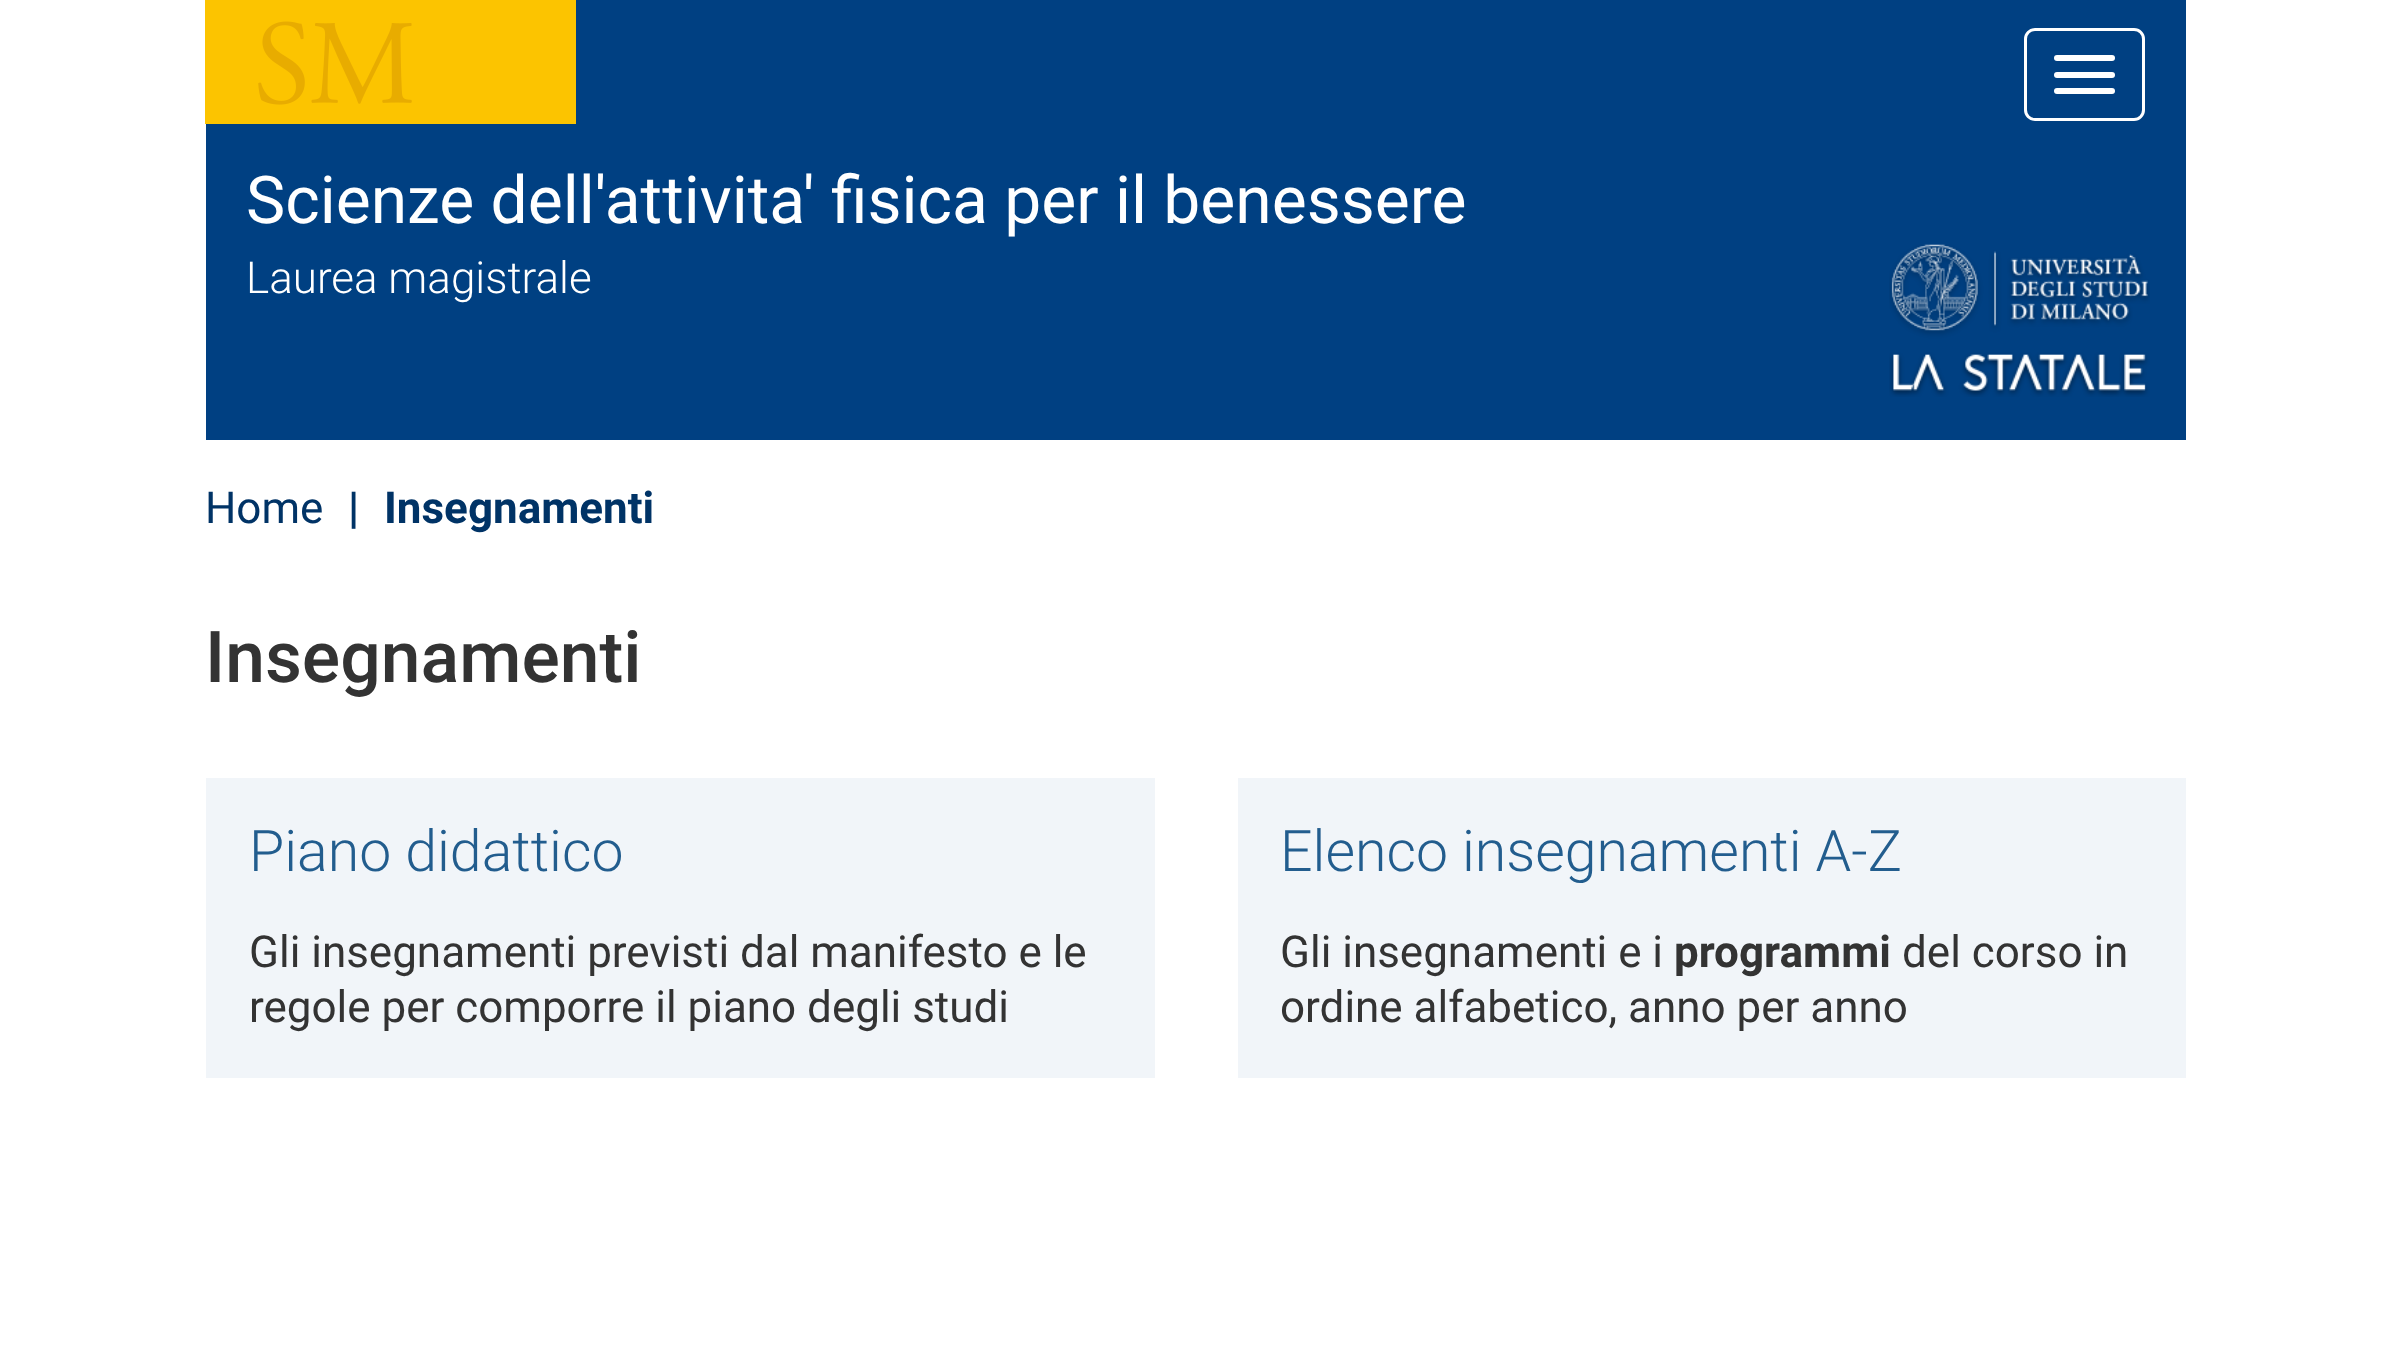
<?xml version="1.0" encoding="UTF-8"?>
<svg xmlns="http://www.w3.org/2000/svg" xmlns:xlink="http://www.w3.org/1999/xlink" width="2389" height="1352">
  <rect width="100%" height="100%" fill="#ffffff" />
  <rect x="206" width="1980" height="440" fill="#004082" />
  <rect x="2025.5" y="29.5" width="118" height="90" rx="9.5" fill="none" stroke="#ffffff" stroke-width="3" />
  <rect x="2054" y="55" width="61" height="6" rx="3" fill="#ffffff" />
  <rect x="2054" y="72" width="61" height="6" rx="3" fill="#ffffff" />
  <rect x="2054" y="88" width="61" height="6" rx="3" fill="#ffffff" />
  <rect x="205" width="371" height="124" fill="#fcc400" />
  <image x="258" y="21" width="154" height="84" xlink:href="image1.png" />
  <image x="1889" y="244" width="261" height="153" xlink:href="image2.png" />
  <rect x="206" y="778" width="949" height="300" fill="#f1f5f9" />
  <rect x="1238" y="778" width="948" height="300" fill="#f1f5f9" />
  <text x="246" y="223" style="font-family: Roboto; font-size: 66px; fill: #ffffff">Scienze dell'attivita' fisica per il benessere</text>
  <text x="246" y="293" style="font-family: Roboto; font-size: 44px; font-weight: 300; fill: #ffffff">Laurea magistrale</text>
  <text x="205" y="523" style="font-family: Roboto; font-size: 44px; fill: #003366">Home</text>
  <text x="348" y="523" style="font-family: Roboto; font-size: 44px; font-weight: bold; fill: #003366">|</text>
  <text x="384" y="523" style="font-family: Roboto; font-size: 44px; font-weight: bold; fill: #003366">Insegnamenti</text>
  <text x="205" y="682" style="font-family: Roboto; font-size: 71.5px; font-weight: 500; fill: #333333">Insegnamenti</text>
  <text x="249" y="871" style="font-family: Roboto; font-size: 57.25px; font-weight: 300; fill: #225d8e">Piano didattico</text>
  <text x="249" y="967" style="font-family: Roboto; font-size: 44px; fill: #333333">Gli insegnamenti previsti dal manifesto e le</text>
  <text x="249" y="1022" style="font-family: Roboto; font-size: 44px; fill: #333333">regole per comporre il piano degli studi</text>
  <text x="1280" y="871" style="font-family: Roboto; font-size: 57.25px; font-weight: 300; fill: #225d8e">Elenco insegnamenti A-Z</text>
  <text x="1280" y="967" style="font-family: Roboto; font-size: 44px; fill: #333333">Gli insegnamenti e i</text>
  <text x="1674" y="967" style="font-family: Roboto; font-size: 44px; font-weight: bold; fill: #333333">programmi</text>
  <text x="1902" y="967" style="font-family: Roboto; font-size: 44px; fill: #333333">del corso in</text>
  <text x="1280" y="1022" style="font-family: Roboto; font-size: 44px; fill: #333333">ordine alfabetico, anno per anno</text>
</svg>
